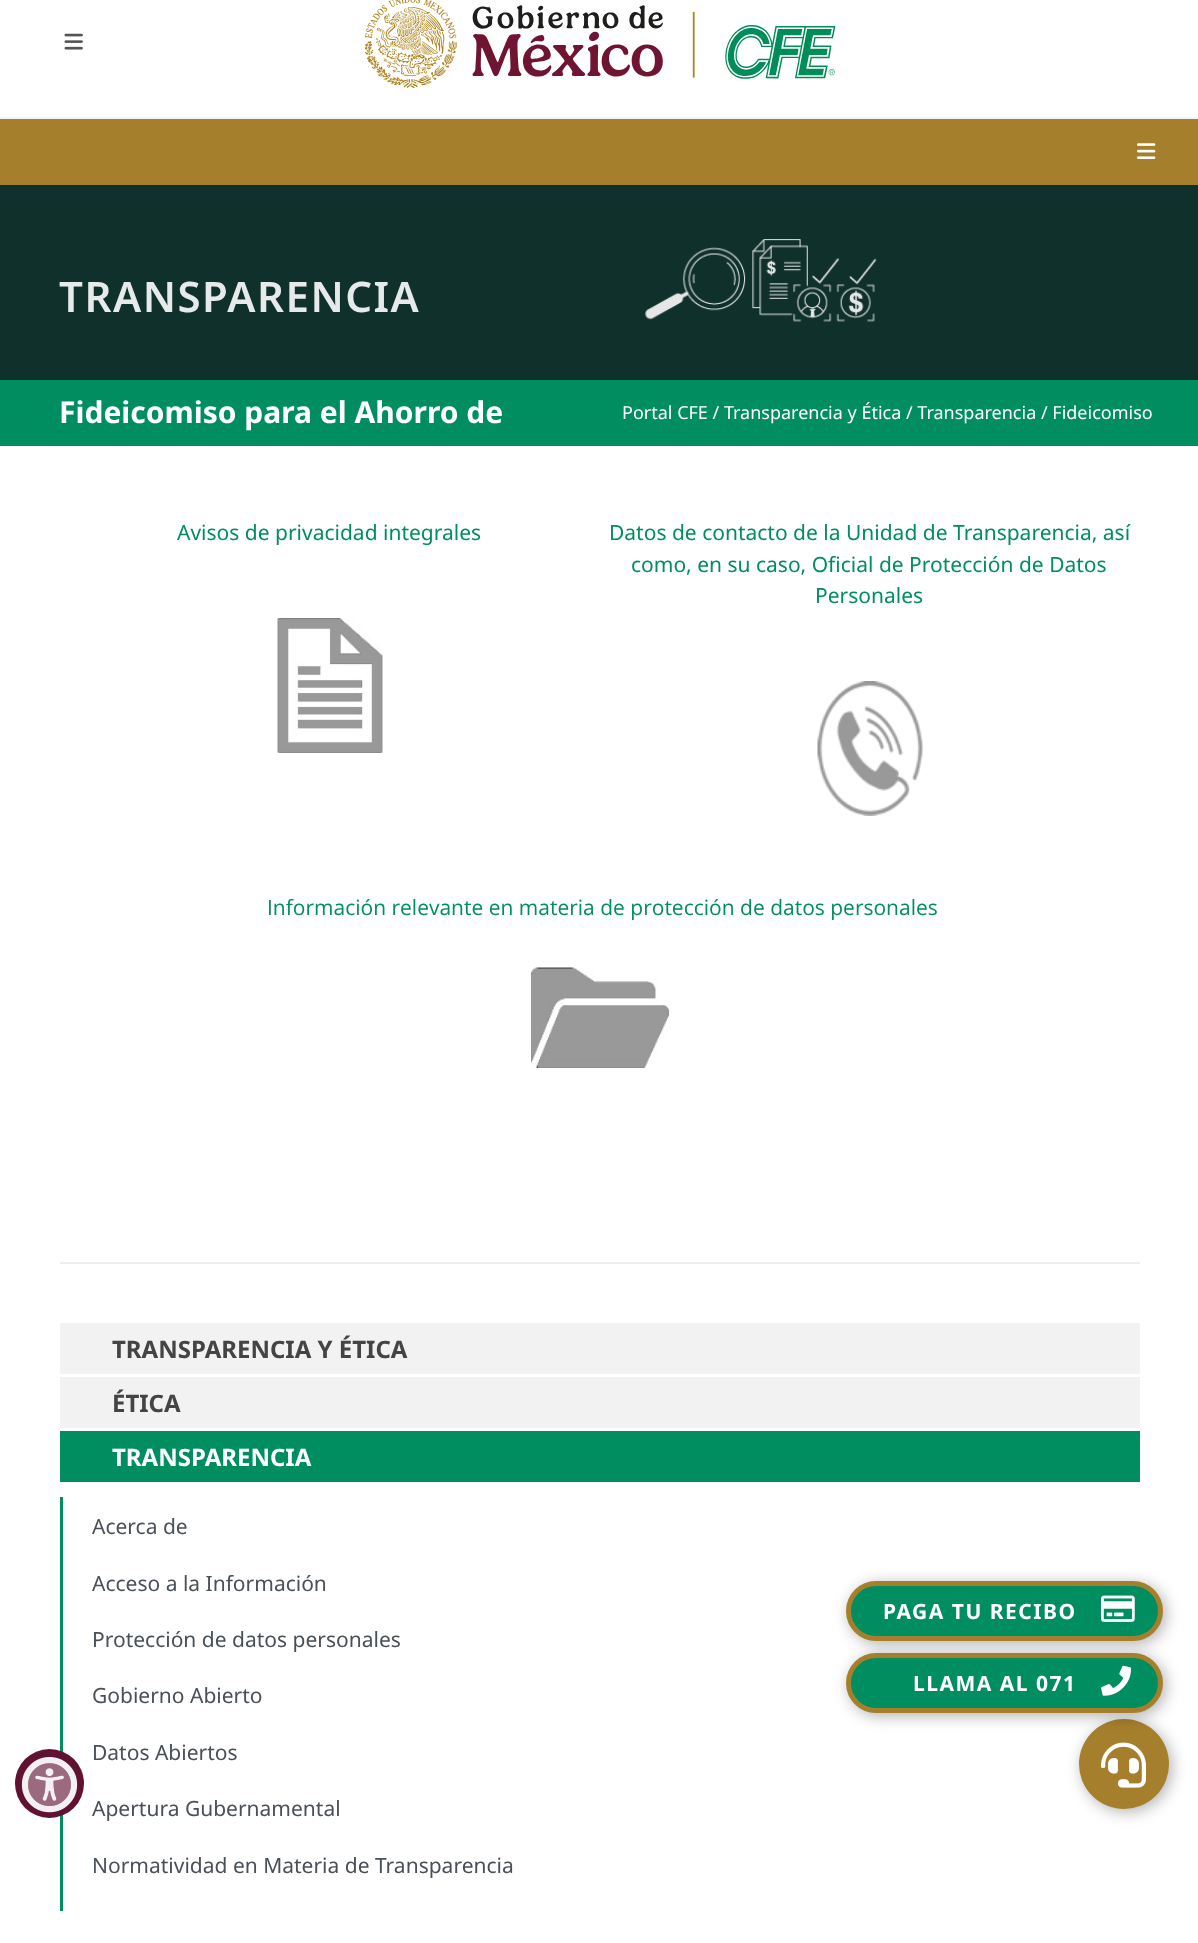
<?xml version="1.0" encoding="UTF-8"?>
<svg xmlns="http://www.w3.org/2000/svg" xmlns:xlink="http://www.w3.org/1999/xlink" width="1198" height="1943">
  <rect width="100%" height="100%" fill="#ffffff" />
  <rect x="60" y="1497" width="3" height="255" fill="#008e60" />
  <rect x="60" y="1815" width="3" height="96" fill="#008e60" />
  <circle cx="49.5" cy="1783.5" r="34.5" fill="#611232" />
  <image x="21" y="1757" width="57" height="56" xlink:href="image1.png" />
  <image x="28" y="1763" width="43" height="43" xlink:href="image2.png" />
  <rect y="119" width="1198" height="66" fill="#a57f2c" />
  <image x="1137" y="143" width="19" height="16" xlink:href="image3.png" />
  <rect y="185" width="1198" height="195" fill="#10312b" />
  <image x="645" y="239" width="232" height="83" xlink:href="image4.png" />
  <rect y="380" width="1198" height="66" fill="#008e60" />
  <rect x="60" y="1262" width="1080" height="2" fill="#eeeeee" />
  <image x="277" y="618" width="106" height="135" xlink:href="image5.png" />
  <image x="817" y="681" width="106" height="135" xlink:href="image6.png" />
  <image x="531" y="967" width="138" height="101" xlink:href="image7.png" />
  <rect x="60" y="1323" width="1080" height="51" fill="#f3f2f2" />
  <rect x="60" y="1377" width="1080" height="51" fill="#f3f2f2" />
  <rect x="60" y="1431" width="1080" height="51" fill="#008e60" />
  <rect y="117" width="1198" height="2" fill="#f5f5f5" />
  <image x="64" y="33" width="19" height="17" xlink:href="image8.png" />
  <image x="365" y="0" width="471" height="89" xlink:href="image9.png" />
  <rect x="849" y="1584" width="317" height="60" rx="30" fill="#000000" fill-opacity="0.3" filter="blur(7.5px)" />
  <rect x="848.5" y="1583.5" width="312" height="55" rx="27.5" fill="#008e60" stroke="#a57f2c" stroke-width="5" />
  <image x="1101" y="1595" width="34" height="27" xlink:href="image10.png" />
  <rect x="1082" y="1722" width="90" height="90" rx="45" fill="#000000" fill-opacity="0.3" filter="blur(7.5px)" />
  <circle cx="1124" cy="1764" r="45" fill="#a57f2c" />
  <rect x="849" y="1656" width="317" height="60" rx="30" fill="#000000" fill-opacity="0.3" filter="blur(7.5px)" />
  <rect x="848.5" y="1655.5" width="312" height="55" rx="27.5" fill="#008e60" stroke="#a57f2c" stroke-width="5" />
  <image x="1101" y="1665" width="31" height="31" xlink:href="image11.png" />
  <image x="1101" y="1742" width="45" height="46" xlink:href="image12.png" />
  <text x="59" y="312" style="font-family: Noto Sans; font-size: 42px; font-weight: 600; letter-spacing: 1.5px; fill: #e7eaea">TRANSPARENCIA</text>
  <text x="59" y="423" style="font-family: Noto Sans; font-size: 30px; font-weight: bold; fill: #ffffff">Fideicomiso para el Ahorro de</text>
  <text x="622" y="419" style="font-family: Noto Sans; font-size: 18px; fill: #ffffff">Portal CFE / Transparencia y Ética / Transparencia / Fideicomiso</text>
  <text x="177" y="540" style="font-family: Noto Sans; font-size: 21px; fill: #008e60">Avisos de privacidad integrales</text>
  <text x="609" y="540" style="font-family: Noto Sans; font-size: 21px; fill: #008e60">Datos de contacto de la Unidad de Transparencia, así</text>
  <text x="631" y="572" style="font-family: Noto Sans; font-size: 21px; fill: #008e60">como, en su caso, Oficial de Protección de Datos</text>
  <text x="815" y="603" style="font-family: Noto Sans; font-size: 21px; fill: #008e60">Personales</text>
  <text x="267" y="915" style="font-family: Open Sans; font-size: 21px; fill: #008e60">Información relevante en materia de protección de datos personales</text>
  <text x="112" y="1358" style="font-family: Noto Sans; font-size: 24px; font-weight: bold; fill: #444444">TRANSPARENCIA Y ÉTICA</text>
  <text x="112" y="1412" style="font-family: Noto Sans; font-size: 24px; font-weight: bold; fill: #444444">ÉTICA</text>
  <text x="112" y="1466" style="font-family: Noto Sans; font-size: 24px; font-weight: bold; fill: #ffffff">TRANSPARENCIA</text>
  <text x="92" y="1534" style="font-family: Noto Sans; font-size: 21px; fill: #495057">Acerca de</text>
  <text x="92" y="1591" style="font-family: Noto Sans; font-size: 21px; fill: #495057">Acceso a la Información</text>
  <text x="92" y="1647" style="font-family: Noto Sans; font-size: 21px; fill: #495057">Protección de datos personales</text>
  <text x="92" y="1703" style="font-family: Noto Sans; font-size: 21px; fill: #495057">Gobierno Abierto</text>
  <text x="92" y="1760" style="font-family: Noto Sans; font-size: 21px; fill: #495057">Datos Abiertos</text>
  <text x="92" y="1816" style="font-family: Noto Sans; font-size: 21px; fill: #495057">Apertura Gubernamental</text>
  <text x="92" y="1873" style="font-family: Noto Sans; font-size: 21px; fill: #495057">Normatividad en Materia de Transparencia</text>
  <text x="883" y="1619" style="font-family: Noto Sans; font-size: 21px; font-weight: bold; letter-spacing: 1.5px; fill: #ffffff">PAGA TU RECIBO</text>
  <text x="913" y="1691" style="font-family: Noto Sans; font-size: 21px; font-weight: bold; letter-spacing: 1.5px; fill: #ffffff">LLAMA AL 071</text>
</svg>
